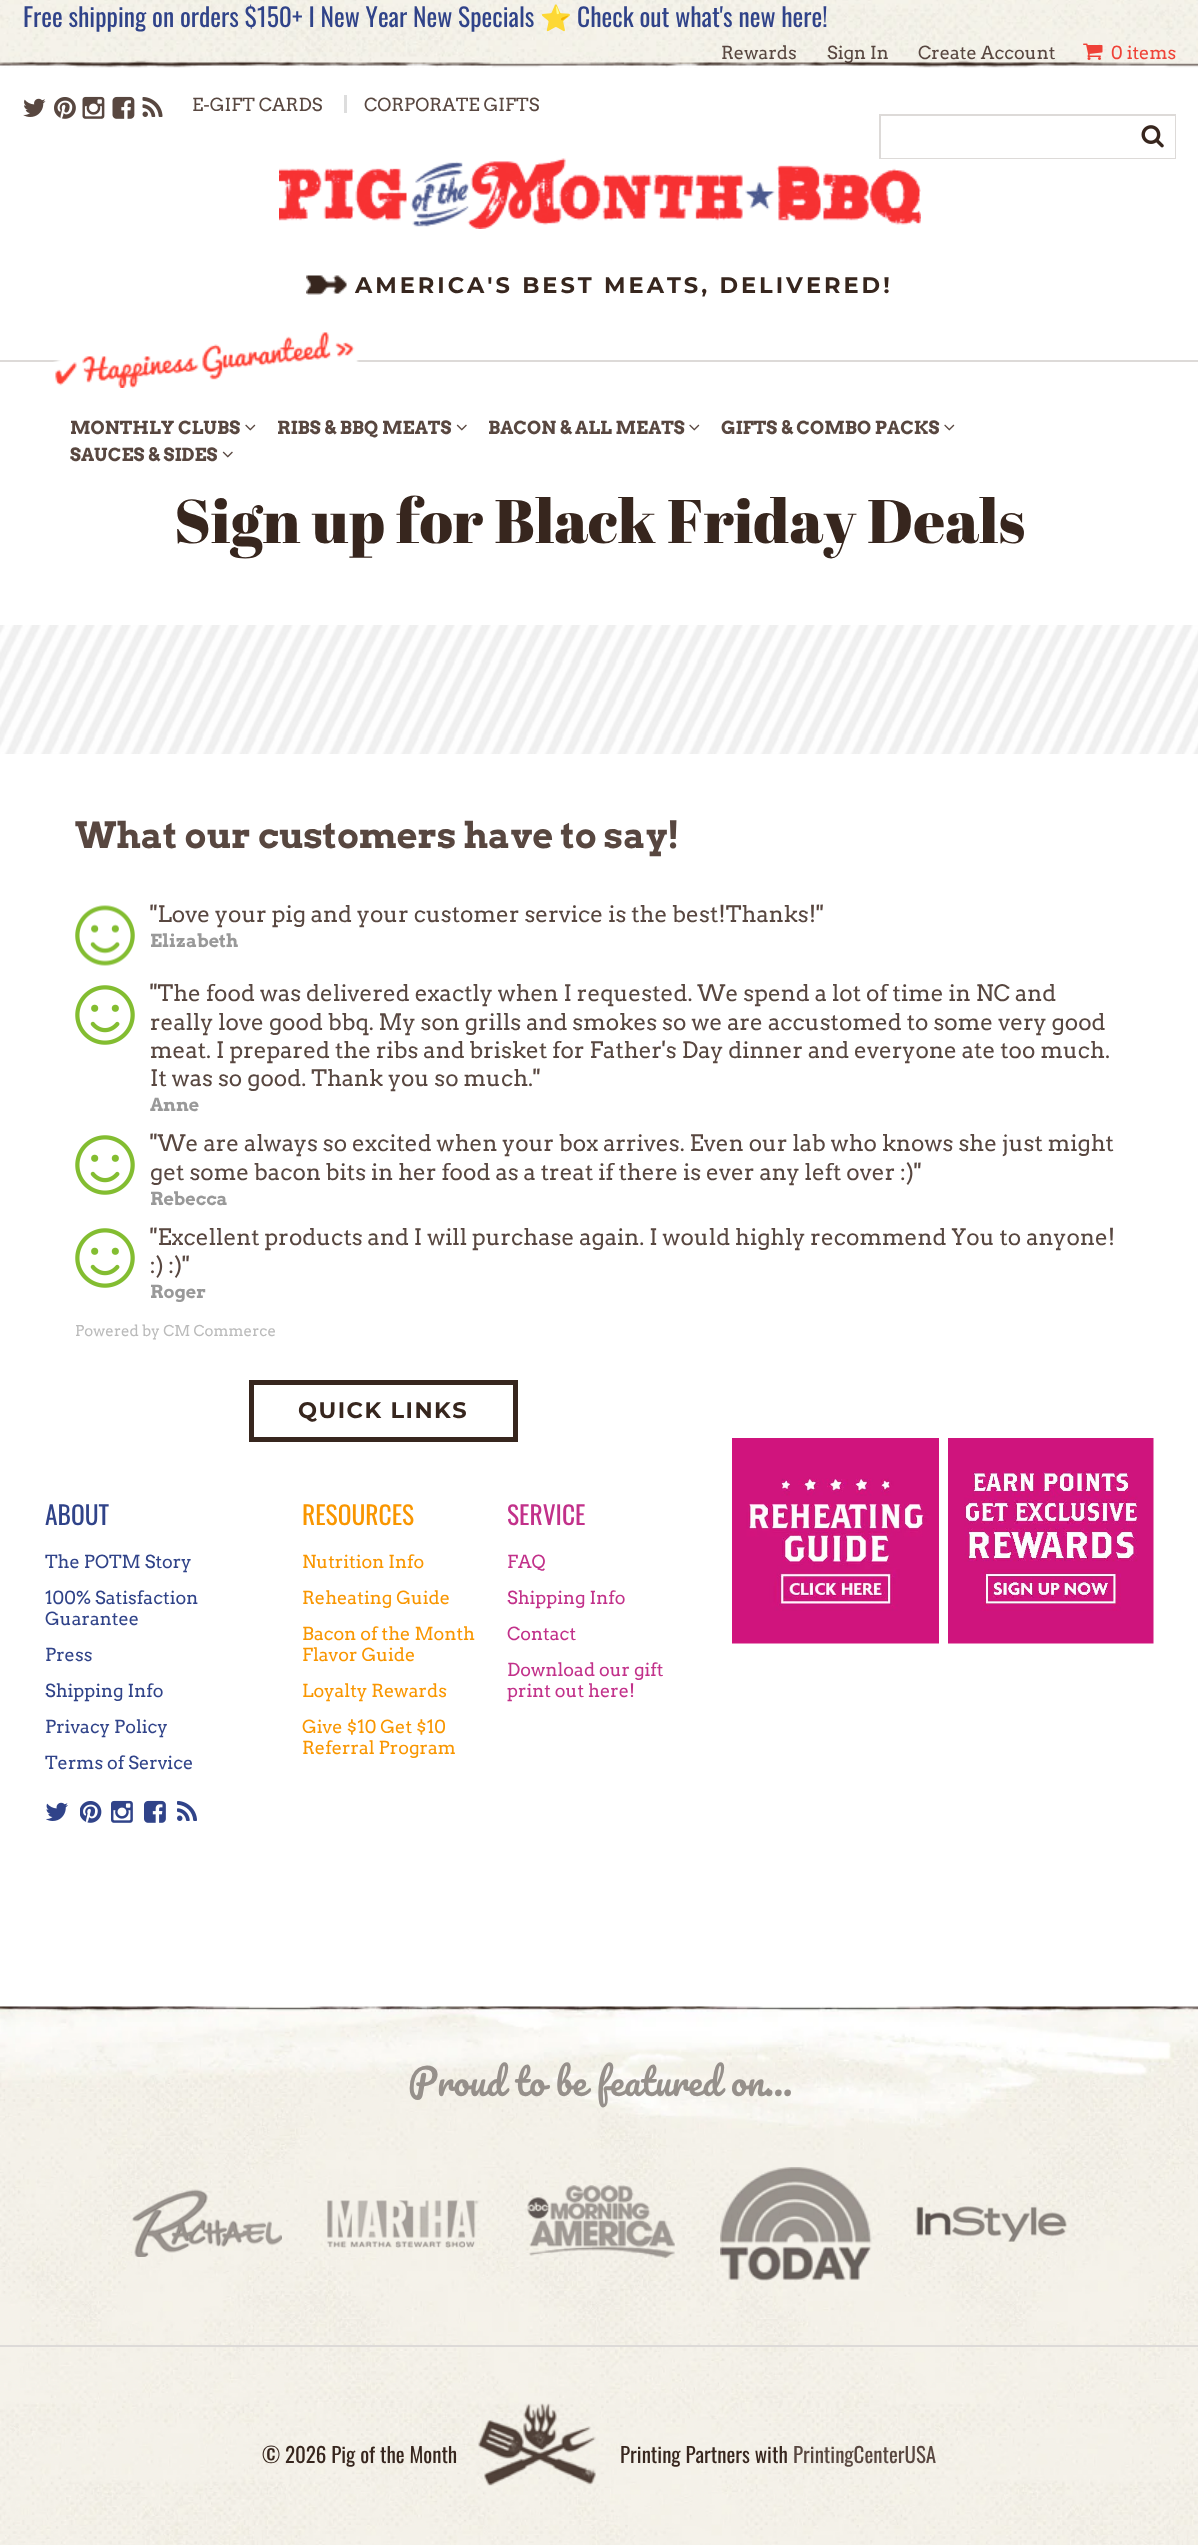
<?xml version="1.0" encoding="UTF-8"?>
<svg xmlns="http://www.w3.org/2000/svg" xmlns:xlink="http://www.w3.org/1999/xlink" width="1198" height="2545">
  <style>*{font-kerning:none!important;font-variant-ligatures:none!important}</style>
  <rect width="100%" height="100%" fill="#ffffff" />
  <image x="0" y="0" width="1198" height="64" xlink:href="image1.png" />
  <rect x="344" y="95" width="3" height="18" fill="#dddddd" />
  <image x="1083" y="43" width="20" height="17" xlink:href="image2.png" />
  <image x="279" y="158" width="642" height="71" xlink:href="image10.png" />
  <rect x="880" y="115" width="295" height="43" fill="none" stroke="#dddad8" stroke-width="2" />
  <rect x="881" y="157" width="255" height="1" fill="#ffffff" />
  <rect x="1136" y="116" width="39" height="42" fill="#ffffff" />
  <image x="1141" y="125" width="23" height="23" xlink:href="image3.png" />
  <image x="23" y="98" width="23" height="19" xlink:href="image5.png" />
  <image x="54" y="97" width="22" height="22" xlink:href="image6.png" />
  <image x="82" y="96" width="23" height="23" xlink:href="image7.png" />
  <image x="112" y="96" width="23" height="23" xlink:href="image8.png" />
  <image x="142" y="97" width="21" height="20" xlink:href="image9.png" />
  <image x="306" y="275" width="41" height="20" xlink:href="image11.png" />
  <rect y="360" width="1198" height="2" fill="#dddad8" />
  <image x="53" y="332" width="306" height="56" xlink:href="image12.png" />
  <image x="245" y="424" width="11" height="7" xlink:href="image13.png" />
  <image x="456" y="424" width="11" height="7" xlink:href="image14.png" />
  <image x="689" y="424" width="11" height="7" xlink:href="image13.png" />
  <image x="944" y="424" width="11" height="7" xlink:href="image13.png" />
  <image x="222" y="451" width="11" height="7" xlink:href="image14.png" />
  <image x="0" y="625" width="1198" height="129" xlink:href="image15.png" />
  <image x="75" y="905" width="60" height="61" xlink:href="image16.png" />
  <image x="75" y="985" width="60" height="60" xlink:href="image17.png" />
  <image x="75" y="1135" width="60" height="60" xlink:href="image17.png" />
  <image x="75" y="1228" width="60" height="60" xlink:href="image17.png" />
  <rect x="251.5" y="1382.5" width="264" height="57" fill="none" stroke="#37261e" stroke-width="5" />
  <image x="46" y="1802" width="22" height="19" xlink:href="image18.png" />
  <image x="80" y="1801" width="22" height="22" xlink:href="image19.png" />
  <image x="111" y="1800" width="22" height="23" xlink:href="image20.png" />
  <image x="144" y="1800" width="22" height="23" xlink:href="image21.png" />
  <image x="177" y="1801" width="20" height="20" xlink:href="image22.png" />
  <image x="732" y="1438" width="207" height="206" xlink:href="image23.png" />
  <image x="948" y="1438" width="206" height="206" xlink:href="image24.png" />
  <image x="0" y="2006" width="1198" height="539" xlink:href="image25.png" />
  <image x="132" y="2189" width="150" height="68" xlink:href="image26.png" />
  <image x="327" y="2200" width="152" height="48" xlink:href="image27.png" />
  <image x="527" y="2185" width="148" height="73" xlink:href="image28.png" />
  <image x="720" y="2167" width="152" height="114" xlink:href="image29.png" />
  <image x="916" y="2203" width="151" height="39" xlink:href="image30.png" />
  <rect y="2345" width="1198" height="2" fill="#dddad8" />
  <image x="478" y="2403" width="118" height="83" xlink:href="image31.png" />
  <text x="23" y="27" style="font-family: Oswald; font-size: 25.5px; fill: #304389">Free shipping on orders $150+ I New Year New Specials</text>
  <text x="540" y="27" style="font-family: Noto Color Emoji; font-size: 25.5px; fill: #304389">⭐</text>
  <text x="577" y="27" style="font-family: Oswald; font-size: 25.5px; fill: #304389">Check out what's new here!</text>
  <text x="721" y="59" style="font-family: Arvo; font-size: 18px; fill: #584740">Rewards</text>
  <text x="827" y="59" style="font-family: Arvo; font-size: 18px; fill: #584740">Sign In</text>
  <text x="918" y="59" style="font-family: Arvo; font-size: 18px; fill: #584740">Create Account</text>
  <text x="192" y="111" style="font-family: Arvo; font-size: 18px; fill: #584740">E-GIFT CARDS</text>
  <text x="364" y="111" style="font-family: Arvo; font-size: 18px; fill: #584740">CORPORATE GIFTS</text>
  <text x="1111" y="59" style="font-family: Arvo; font-size: 18px; fill: #ef4237">0 items</text>
  <image x="0" y="60" width="1198" height="8" xlink:href="image4.png" />
  <text x="355" y="293" style="font-family: Montserrat; font-size: 22.5px; font-weight: bold; letter-spacing: 3px; fill: #37261e">AMERICA'S BEST MEATS, DELIVERED!</text>
  <text x="70" y="434" style="font-family: Arvo; font-size: 18px; font-weight: bold; fill: #584740">MONTHLY CLUBS</text>
  <text x="277" y="434" style="font-family: Arvo; font-size: 18px; font-weight: bold; fill: #584740">RIBS &amp; BBQ MEATS</text>
  <text x="488" y="434" style="font-family: Arvo; font-size: 18px; font-weight: bold; fill: #584740">BACON &amp; ALL MEATS</text>
  <text x="721" y="434" style="font-family: Arvo; font-size: 18px; font-weight: bold; fill: #584740">GIFTS &amp; COMBO PACKS</text>
  <text x="70" y="461" style="font-family: Arvo; font-size: 18px; font-weight: bold; fill: #584740">SAUCES &amp; SIDES</text>
  <text x="174" y="543" style="font-family: Abril Fatface; font-size: 61.5px; fill: #37261e">Sign up for Black Friday Deals</text>
  <text x="75" y="848" style="font-family: Arvo; font-size: 36px; font-weight: bold; fill: #584740">What our customers have to say!</text>
  <text x="150" y="922" style="font-family: Arvo; font-size: 22.5px; fill: #584740">''Love your pig and your customer service is the best!Thanks!''</text>
  <text x="150" y="947" style="font-family: Arvo; font-size: 18px; font-weight: bold; fill: #999999">Elizabeth</text>
  <text x="150" y="1001" style="font-family: Arvo; font-size: 22.5px; fill: #584740">''The food was delivered exactly when I requested. We spend a lot of time in NC and</text>
  <text x="150" y="1030" style="font-family: Arvo; font-size: 22.5px; fill: #584740">really love good bbq. My son grills and smokes so we are accustomed to some very good</text>
  <text x="150" y="1058" style="font-family: Arvo; font-size: 22.5px; fill: #584740">meat. I prepared the ribs and brisket for Father's Day dinner and everyone ate too much.</text>
  <text x="150" y="1086" style="font-family: Arvo; font-size: 22.5px; fill: #584740">It was so good. Thank you so much.''</text>
  <text x="150" y="1111" style="font-family: Arvo; font-size: 18px; font-weight: bold; fill: #999999">Anne</text>
  <text x="150" y="1151" style="font-family: Arvo; font-size: 22.5px; fill: #584740">''We are always so excited when your box arrives. Even our lab who knows she just might</text>
  <text x="150" y="1180" style="font-family: Arvo; font-size: 22.5px; fill: #584740">get some bacon bits in her food as a treat if there is ever any left over :)''</text>
  <text x="150" y="1205" style="font-family: Arvo; font-size: 18px; font-weight: bold; fill: #999999">Rebecca</text>
  <text x="150" y="1245" style="font-family: Arvo; font-size: 22.5px; fill: #584740">''Excellent products and I will purchase again. I would highly recommend You to anyone!</text>
  <text x="150" y="1273" style="font-family: Arvo; font-size: 22.5px; fill: #584740">:) :)''</text>
  <text x="150" y="1298" style="font-family: Arvo; font-size: 18px; font-weight: bold; fill: #999999">Roger</text>
  <text x="75" y="1336" style="font-family: Arvo; font-size: 15px; fill: #bbbbbb">Powered by CM Commerce</text>
  <text x="298" y="1418" style="font-family: Montserrat; font-size: 22.5px; font-weight: bold; letter-spacing: 1.5px; fill: #37261e">QUICK LINKS</text>
  <text x="45" y="1525" style="font-family: Oswald; font-size: 25.5px; fill: #304389">ABOUT</text>
  <text x="45" y="1568" style="font-family: Arvo; font-size: 18px; fill: #304389">The POTM Story</text>
  <text x="45" y="1604" style="font-family: Arvo; font-size: 18px; fill: #304389">100% Satisfaction</text>
  <text x="45" y="1625" style="font-family: Arvo; font-size: 18px; fill: #304389">Guarantee</text>
  <text x="45" y="1661" style="font-family: Arvo; font-size: 18px; fill: #304389">Press</text>
  <text x="45" y="1697" style="font-family: Arvo; font-size: 18px; fill: #304389">Shipping Info</text>
  <text x="45" y="1733" style="font-family: Arvo; font-size: 18px; fill: #304389">Privacy Policy</text>
  <text x="45" y="1769" style="font-family: Arvo; font-size: 18px; fill: #304389">Terms of Service</text>
  <text x="302" y="1525" style="font-family: Oswald; font-size: 25.5px; fill: #f99600">RESOURCES</text>
  <text x="302" y="1568" style="font-family: Arvo; font-size: 18px; fill: #f99600">Nutrition Info</text>
  <text x="302" y="1604" style="font-family: Arvo; font-size: 18px; fill: #f99600">Reheating Guide</text>
  <text x="302" y="1640" style="font-family: Arvo; font-size: 18px; fill: #f99600">Bacon of the Month</text>
  <text x="302" y="1661" style="font-family: Arvo; font-size: 18px; fill: #f99600">Flavor Guide</text>
  <text x="302" y="1697" style="font-family: Arvo; font-size: 18px; fill: #f99600">Loyalty Rewards</text>
  <text x="302" y="1733" style="font-family: Arvo; font-size: 18px; fill: #f99600">Give $10 Get $10</text>
  <text x="302" y="1754" style="font-family: Arvo; font-size: 18px; fill: #f99600">Referral Program</text>
  <text x="507" y="1525" style="font-family: Oswald; font-size: 25.5px; fill: #c2318a">SERVICE</text>
  <text x="507" y="1568" style="font-family: Arvo; font-size: 18px; fill: #c2318a">FAQ</text>
  <text x="507" y="1604" style="font-family: Arvo; font-size: 18px; fill: #c2318a">Shipping Info</text>
  <text x="507" y="1640" style="font-family: Arvo; font-size: 18px; fill: #c2318a">Contact</text>
  <text x="507" y="1676" style="font-family: Arvo; font-size: 18px; fill: #c2318a">Download our gift</text>
  <text x="507" y="1697" style="font-family: Arvo; font-size: 18px; fill: #c2318a">print out here!</text>
  <text x="408" y="2096" word-spacing="0.5" style="font-family: Pacifico; font-size: 36px; fill: #96908b">Proud to be featured on...</text>
  <text x="262" y="2463" style="font-family: Oswald; font-size: 21px; fill: #37261e">© 2026 Pig of the Month</text>
  <text x="620" y="2463" style="font-family: Oswald; font-size: 21px; fill: #37261e">Printing Partners with</text>
  <text x="793" y="2463" style="font-family: Oswald; font-size: 21px; fill: #584740">PrintingCenterUSA</text>
</svg>
